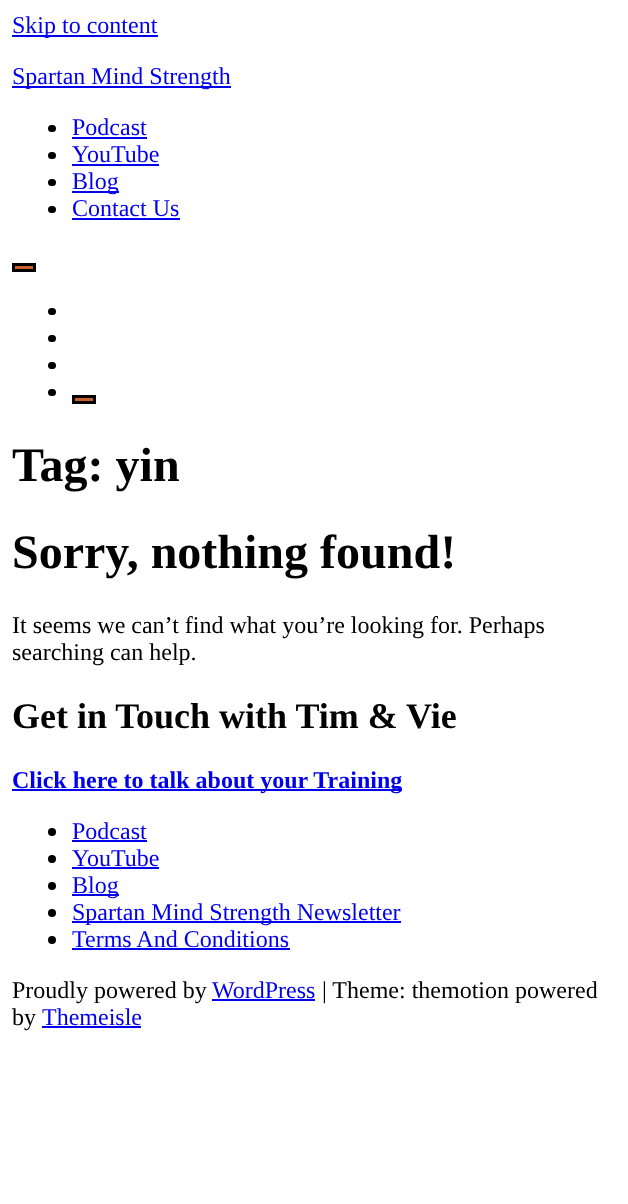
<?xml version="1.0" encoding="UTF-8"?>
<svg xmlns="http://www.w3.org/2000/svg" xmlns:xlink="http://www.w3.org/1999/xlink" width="628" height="1204">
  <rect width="100%" height="100%" fill="#ffffff" />
  <rect x="12" y="35" width="146" height="2" fill="#0000ee" />
  <rect x="12" y="86" width="219" height="2" fill="#0000ee" />
  <rect x="48" y="125" width="8" height="7" rx="3.5" fill="#000000" />
  <rect x="72" y="137" width="75" height="2" fill="#0000ee" />
  <rect x="48" y="152" width="8" height="7" rx="3.5" fill="#000000" />
  <rect x="72" y="164" width="87" height="2" fill="#0000ee" />
  <rect x="48" y="179" width="8" height="7" rx="3.5" fill="#000000" />
  <rect x="72" y="191" width="47" height="2" fill="#0000ee" />
  <rect x="48" y="206" width="8" height="7" rx="3.5" fill="#000000" />
  <rect x="72" y="218" width="108" height="2" fill="#0000ee" />
  <rect x="13.5" y="264.5" width="21" height="6" fill="#ca602c" stroke="#000000" stroke-width="3" />
  <rect x="48" y="308" width="8" height="7" rx="3.5" fill="#000000" />
  <rect x="48" y="335" width="8" height="7" rx="3.5" fill="#000000" />
  <rect x="48" y="362" width="8" height="7" rx="3.5" fill="#000000" />
  <rect x="48" y="389" width="8" height="7" rx="3.5" fill="#000000" />
  <rect x="73.5" y="396.5" width="21" height="6" fill="#ca602c" stroke="#000000" stroke-width="3" />
  <rect x="12" y="789" width="390" height="2" fill="#0000ee" />
  <circle cx="52" cy="832" r="4" fill="#000000" />
  <rect x="72" y="840" width="75" height="2" fill="#0000ee" />
  <circle cx="52" cy="859" r="4" fill="#000000" />
  <rect x="72" y="867" width="87" height="2" fill="#0000ee" />
  <circle cx="52" cy="886" r="4" fill="#000000" />
  <rect x="72" y="894" width="47" height="2" fill="#0000ee" />
  <circle cx="52" cy="913" r="4" fill="#000000" />
  <rect x="72" y="921" width="329" height="2" fill="#0000ee" />
  <circle cx="52" cy="940" r="4" fill="#000000" />
  <rect x="72" y="948" width="218" height="2" fill="#0000ee" />
  <rect x="212" y="999" width="103" height="2" fill="#0000ee" />
  <rect x="42" y="1026" width="99" height="2" fill="#0000ee" />
  <text x="12" y="33" style="font-family: Liberation Serif; font-size: 24px; fill: #0000ee">Skip to content</text>
  <text x="12" y="84" style="font-family: Liberation Serif; font-size: 24px; fill: #0000ee">Spartan Mind Strength</text>
  <text x="72" y="135" style="font-family: Liberation Serif; font-size: 24px; fill: #0000ee">Podcast</text>
  <text x="72" y="162" style="font-family: Liberation Serif; font-size: 24px; fill: #0000ee">YouTube</text>
  <text x="72" y="189" style="font-family: Liberation Serif; font-size: 24px; fill: #0000ee">Blog</text>
  <text x="72" y="216" style="font-family: Liberation Serif; font-size: 24px; fill: #0000ee">Contact Us</text>
  <text x="12" y="481" style="font-family: Liberation Serif; font-size: 48px; font-weight: bold; fill: #000000">Tag: yin</text>
  <text x="12" y="568" style="font-family: Liberation Serif; font-size: 48px; font-weight: bold; fill: #000000">Sorry, nothing found!</text>
  <text x="12" y="633" style="font-family: Liberation Serif; font-size: 24px; fill: #000000">It seems we can’t find what you’re looking for. Perhaps</text>
  <text x="12" y="660" style="font-family: Liberation Serif; font-size: 24px; fill: #000000">searching can help.</text>
  <text x="12" y="728" style="font-family: Liberation Serif; font-size: 36px; font-weight: bold; fill: #000000">Get in Touch with Tim &amp; Vie</text>
  <text x="12" y="788" style="font-family: Liberation Serif; font-size: 24px; font-weight: bold; fill: #0000ee">Click here to talk about your Training</text>
  <text x="72" y="839" style="font-family: Liberation Serif; font-size: 24px; fill: #0000ee">Podcast</text>
  <text x="72" y="866" style="font-family: Liberation Serif; font-size: 24px; fill: #0000ee">YouTube</text>
  <text x="72" y="893" style="font-family: Liberation Serif; font-size: 24px; fill: #0000ee">Blog</text>
  <text x="72" y="920" style="font-family: Liberation Serif; font-size: 24px; fill: #0000ee">Spartan Mind Strength Newsletter</text>
  <text x="72" y="947" style="font-family: Liberation Serif; font-size: 24px; fill: #0000ee">Terms And Conditions</text>
  <text x="12" y="998" style="font-family: Liberation Serif; font-size: 24px; fill: #000000">Proudly powered by</text>
  <text x="212" y="998" style="font-family: Liberation Serif; font-size: 24px; fill: #0000ee">WordPress</text>
  <text x="322" y="998" style="font-family: Liberation Serif; font-size: 24px; fill: #000000">| Theme: themotion powered</text>
  <text x="12" y="1025" style="font-family: Liberation Serif; font-size: 24px; fill: #000000">by</text>
  <text x="42" y="1025" style="font-family: Liberation Serif; font-size: 24px; fill: #0000ee">Themeisle</text>
</svg>
